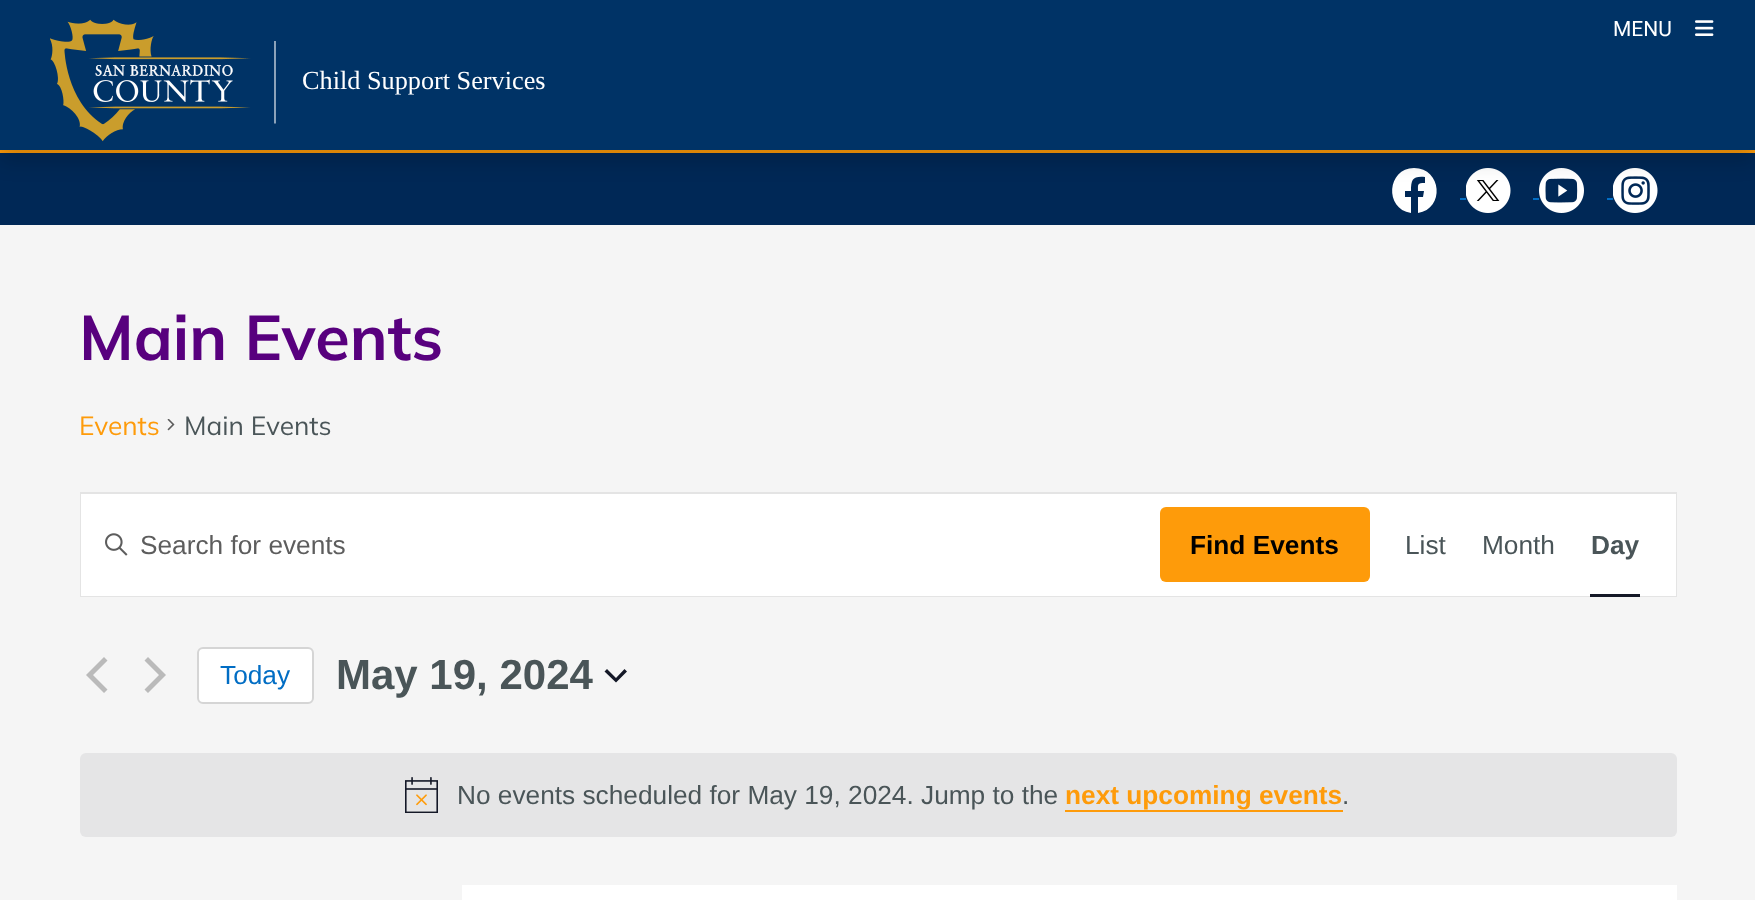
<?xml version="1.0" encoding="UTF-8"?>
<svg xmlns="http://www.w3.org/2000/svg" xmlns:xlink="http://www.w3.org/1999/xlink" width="1755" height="900">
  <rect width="100%" height="100%" fill="#f5f5f5" />
  <rect y="153" width="1755" height="72" fill="#002856" />
  <rect y="150" width="1755" height="3" fill="#fe9b0a" />
  <path d="M 1414 168 c -27 0 -30 41 -3 45 v -16 h -6 v -6 h 6 c 0 -12 2 -15 14 -14 v 6 c -8 0 -7 1 -7 8 h 6 l -1 6 h -5 v 16 c 27 -4 24 -45 -4 -45 z" fill="#ffffff" />
  <image x="1466" y="168" width="45" height="45" xlink:href="image3.png" />
  <image x="1539" y="168" width="45" height="45" xlink:href="image4.png" />
  <image x="1613" y="168" width="45" height="45" xlink:href="image5.png" />
  <rect y="12" width="1755" height="150" fill="#000000" fill-opacity="0.16" filter="blur(9.5px)" />
  <rect width="1755" height="150" fill="#003366" />
  <image x="1695" y="20" width="19" height="16" xlink:href="image1.png" />
  <image x="50" y="19" width="201" height="123" xlink:href="image2.png" />
  <path d="M 275 123.5 v -82.5" fill="none" stroke="#ffffff" stroke-width="1.1" />
  <rect x="1460" y="198" width="6" height="2" fill="#016dc4" />
  <rect x="1533" y="198" width="6" height="2" fill="#016dc4" />
  <rect x="1607" y="198" width="6" height="2" fill="#016dc4" />
  <image x="167" y="419" width="8" height="12" xlink:href="image6.png" />
  <rect x="81" y="493" width="1595" height="103" fill="none" stroke="#e4e4e4" stroke-width="2" />
  <rect x="81" y="494" width="1595" height="102" fill="#ffffff" />
  <image x="105" y="533" width="23" height="23" xlink:href="image7.png" />
  <rect x="1160" y="507" width="210" height="75" rx="6" fill="#fe9b0a" />
  <rect x="1590" y="594" width="50" height="3" fill="#141827" />
  <path d="M 107.5 689.5 l -3.5 3.5 l -18 -18 l 18 -18 l 3.5 3.5 l -14.5 14.5 z" fill="#bababa" />
  <path d="M 144.5 660.5 l 3.5 -3.5 l 18 18 l -18 18 l -3.5 -3.5 l 14.5 -14.5 z" fill="#bababa" />
  <rect x="198" y="648" width="115" height="55" rx="5" fill="#ffffff" stroke="#d5d5d5" stroke-width="2" />
  <path d="M 607 669 l 9 9 l 8.5 -9 l 2.5 2.5 l -11 11 l -11.5 -11 z" fill="#141827" fill-rule="evenodd" />
  <rect x="80" y="753" width="1597" height="84" rx="6" fill="#e5e5e6" />
  <image x="405" y="777" width="33" height="36" xlink:href="image8.png" />
  <rect x="1065" y="810" width="278" height="2" fill="#fe9b0a" />
  <rect x="462" y="885" width="1215" height="15" fill="#ffffff" />
  <text x="1613" y="36" style="font-family: Roboto; font-size: 21px; fill: #ffffff">MENU</text>
  <text x="302" y="89" style="font-family: Liberation Serif; font-size: 26.25px; fill: #ffffff">Child Support Services</text>
  <text x="79" y="360" style="font-family: Mulish; font-size: 63px; font-weight: bold; fill: #58007e">Main Events</text>
  <text x="79" y="435" style="font-family: Mulish; font-size: 26.25px; fill: #fe9b0a">Events</text>
  <text x="184" y="435" style="font-family: Mulish; font-size: 26.25px; fill: #4a5558">Main Events</text>
  <text x="140" y="554" style="font-family: Liberation Sans; font-size: 26.25px; fill: #5d5d5d">Search for events</text>
  <text x="1190" y="554" style="font-family: Liberation Sans; font-size: 26.25px; font-weight: bold; fill: #000000">Find Events</text>
  <text x="1405" y="554" style="font-family: Liberation Sans; font-size: 26.25px; fill: #4a5558">List</text>
  <text x="1482" y="554" style="font-family: Liberation Sans; font-size: 26.25px; fill: #4a5558">Month</text>
  <text x="1591" y="554" style="font-family: Liberation Sans; font-size: 26.25px; font-weight: bold; fill: #4a5558">Day</text>
  <text x="220" y="684" style="font-family: Liberation Sans; font-size: 26.25px; fill: #016dc4">Today</text>
  <text x="336" y="689" style="font-family: Liberation Sans; font-size: 42px; font-weight: bold; fill: #4a5558">May 19, 2024</text>
  <text x="457" y="804" style="font-family: Liberation Sans; font-size: 26.25px; fill: #4a5558">No events scheduled for May 19, 2024. Jump to the</text>
  <text x="1065" y="804" style="font-family: Liberation Sans; font-size: 26.25px; font-weight: bold; fill: #fe9b0a">next upcoming events</text>
  <text x="1342" y="804" style="font-family: Liberation Sans; font-size: 26.25px; fill: #4a5558">.</text>
</svg>
